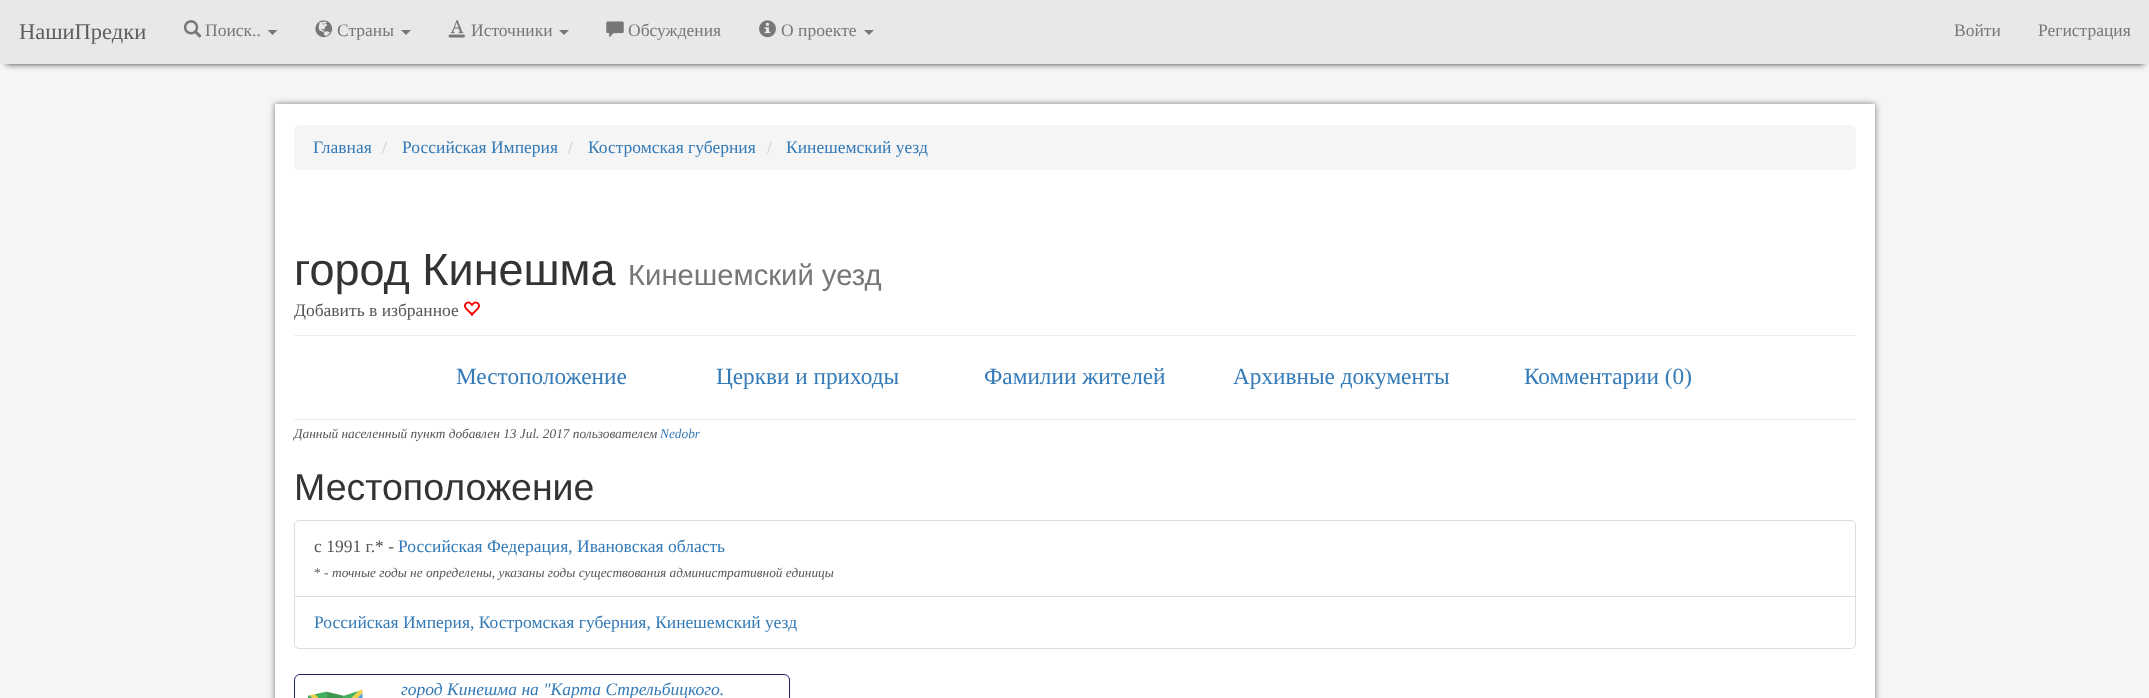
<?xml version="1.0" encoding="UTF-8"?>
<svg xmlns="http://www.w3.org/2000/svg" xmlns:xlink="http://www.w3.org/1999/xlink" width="2149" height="698">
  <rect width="100%" height="100%" fill="#f5f5f5" />
  <rect x="6" y="13" width="2138" height="51" fill="#333333" filter="blur(3px)" />
  <rect width="2149" height="63" fill="#e8e8e8" />
  <rect y="63" width="2149" height="1" fill="#e7e7e7" />
  <image x="183" y="20" width="19" height="18" xlink:href="image1.png" />
  <path d="M 267.5 30 h 10 l -5 5 z" fill="#777777" />
  <image x="315" y="20" width="18" height="18" xlink:href="image2.png" />
  <path d="M 401 30 h 10 l -5 5 z" fill="#777777" />
  <image x="448" y="20" width="17" height="18" xlink:href="image3.png" />
  <path d="M 559 30 h 10 l -5 5 z" fill="#777777" />
  <image x="606" y="21" width="18" height="17" xlink:href="image4.png" />
  <image x="759" y="20" width="17" height="18" xlink:href="image5.png" />
  <path d="M 864 30 h 10 l -5 5 z" fill="#777777" />
  <rect x="275" y="104" width="1600" height="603" fill="#000000" fill-opacity="0.5" filter="blur(3px)" />
  <rect x="275" y="104" width="1600" height="594" fill="#ffffff" />
  <rect x="294" y="125" width="1562" height="45" rx="5" fill="#f5f5f5" />
  <rect x="294" y="335" width="1562" height="1" fill="#eeeeee" />
  <image x="464" y="301" width="16" height="16" xlink:href="image6.png" />
  <rect x="294" y="419" width="1562" height="1" fill="#eeeeee" />
  <path d="M 299 520.5 h 1552 c 2.5 0 4.5 2 4.5 4.5 v 72.5 h -1561 v -72.5 c 0 -2.5 2 -4.5 4.5 -4.5 z" fill="none" stroke="#dddddd" />
  <path d="M 294.5 596.5 h 1561 v 47.5 c 0 2.5 -2 4.5 -4.5 4.5 h -1552 c -2.5 0 -4.5 -2 -4.5 -4.5 z" fill="#ffffff" stroke="#dddddd" />
  <rect x="294.5" y="674.5" width="495" height="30" rx="5.5" fill="none" stroke="#1e2460" />
  <image x="308" y="689" width="55" height="9" xlink:href="image7.png" />
  <text x="19" y="39" style="font-family: Liberation Serif; font-size: 22.5px; fill: #5e5e5e">НашиПредки</text>
  <text x="205" y="36" style="font-family: Liberation Serif; font-size: 17.5px; fill: #777777">Поиск..</text>
  <text x="337" y="36" style="font-family: Liberation Serif; font-size: 17.5px; fill: #777777">Страны</text>
  <text x="471" y="36" style="font-family: Liberation Serif; font-size: 17.5px; fill: #777777">Источники</text>
  <text x="628" y="36" style="font-family: Liberation Serif; font-size: 17.5px; fill: #777777">Обсуждения</text>
  <text x="781" y="36" style="font-family: Liberation Serif; font-size: 17.5px; fill: #777777">О проекте</text>
  <text x="1954" y="36" style="font-family: Liberation Serif; font-size: 17.5px; fill: #777777">Войти</text>
  <text x="2038" y="36" style="font-family: Liberation Serif; font-size: 17.5px; fill: #777777">Регистрация</text>
  <text x="313" y="153" style="font-family: Liberation Serif; font-size: 17.5px; fill: #337ab7">Главная</text>
  <text x="382" y="153" style="font-family: Liberation Serif; font-size: 17.5px; fill: #cccccc">/</text>
  <text x="402" y="153" style="font-family: Liberation Serif; font-size: 17.5px; fill: #337ab7">Российская Империя</text>
  <text x="568" y="153" style="font-family: Liberation Serif; font-size: 17.5px; fill: #cccccc">/</text>
  <text x="588" y="153" style="font-family: Liberation Serif; font-size: 17.5px; fill: #337ab7">Костромская губерния</text>
  <text x="767" y="153" style="font-family: Liberation Serif; font-size: 17.5px; fill: #cccccc">/</text>
  <text x="786" y="153" style="font-family: Liberation Serif; font-size: 17.5px; fill: #337ab7">Кинешемский уезд</text>
  <text x="294" y="285" style="font-family: Liberation Sans; font-size: 45px; fill: #333333">город Кинешма</text>
  <text x="628" y="285" style="font-family: Liberation Sans; font-size: 29.25px; fill: #777777">Кинешемский уезд</text>
  <text x="294" y="316" style="font-family: Liberation Serif; font-size: 17.5px; fill: #555555">Добавить в избранное</text>
  <text x="456" y="384" style="font-family: Liberation Serif; font-size: 23.25px; fill: #337ab7">Местоположение</text>
  <text x="716" y="384" style="font-family: Liberation Serif; font-size: 23.25px; fill: #337ab7">Церкви и приходы</text>
  <text x="984" y="384" style="font-family: Liberation Serif; font-size: 23.25px; fill: #337ab7">Фамилии жителей</text>
  <text x="1233" y="384" style="font-family: Liberation Serif; font-size: 23.25px; fill: #337ab7">Архивные документы</text>
  <text x="1524" y="384" style="font-family: Liberation Serif; font-size: 23.25px; fill: #337ab7">Комментарии (0)</text>
  <text x="294" y="438" style="font-family: Liberation Serif; font-size: 13.35px; font-style: italic; fill: #555555">Данный населенный пункт добавлен 13 Jul. 2017 пользователем</text>
  <text x="660" y="438" style="font-family: Liberation Serif; font-size: 13.35px; font-style: italic; fill: #337ab7">Nedobr</text>
  <text x="294" y="500" style="font-family: Liberation Sans; font-size: 37.5px; fill: #333333">Местоположение</text>
  <text x="314" y="552" style="font-family: Liberation Serif; font-size: 17.5px; fill: #555555">с 1991 г.* -</text>
  <text x="398" y="552" style="font-family: Liberation Serif; font-size: 17.5px; fill: #337ab7">Российская Федерация, Ивановская область</text>
  <text x="314" y="577" style="font-family: Liberation Serif; font-size: 13.35px; fill: #555555">* -</text>
  <text x="332" y="577" style="font-family: Liberation Serif; font-size: 13.35px; font-style: italic; fill: #555555">точные годы не определены, указаны годы существования административной единицы</text>
  <text x="314" y="628" style="font-family: Liberation Serif; font-size: 17.5px; fill: #337ab7">Российская Империя, Костромская губерния, Кинешемский уезд</text>
  <text x="401" y="695" style="font-family: Liberation Serif; font-size: 17.5px; font-style: italic; fill: #337ab7">город Кинешма на "Карта Стрельбицкого.</text>
</svg>
